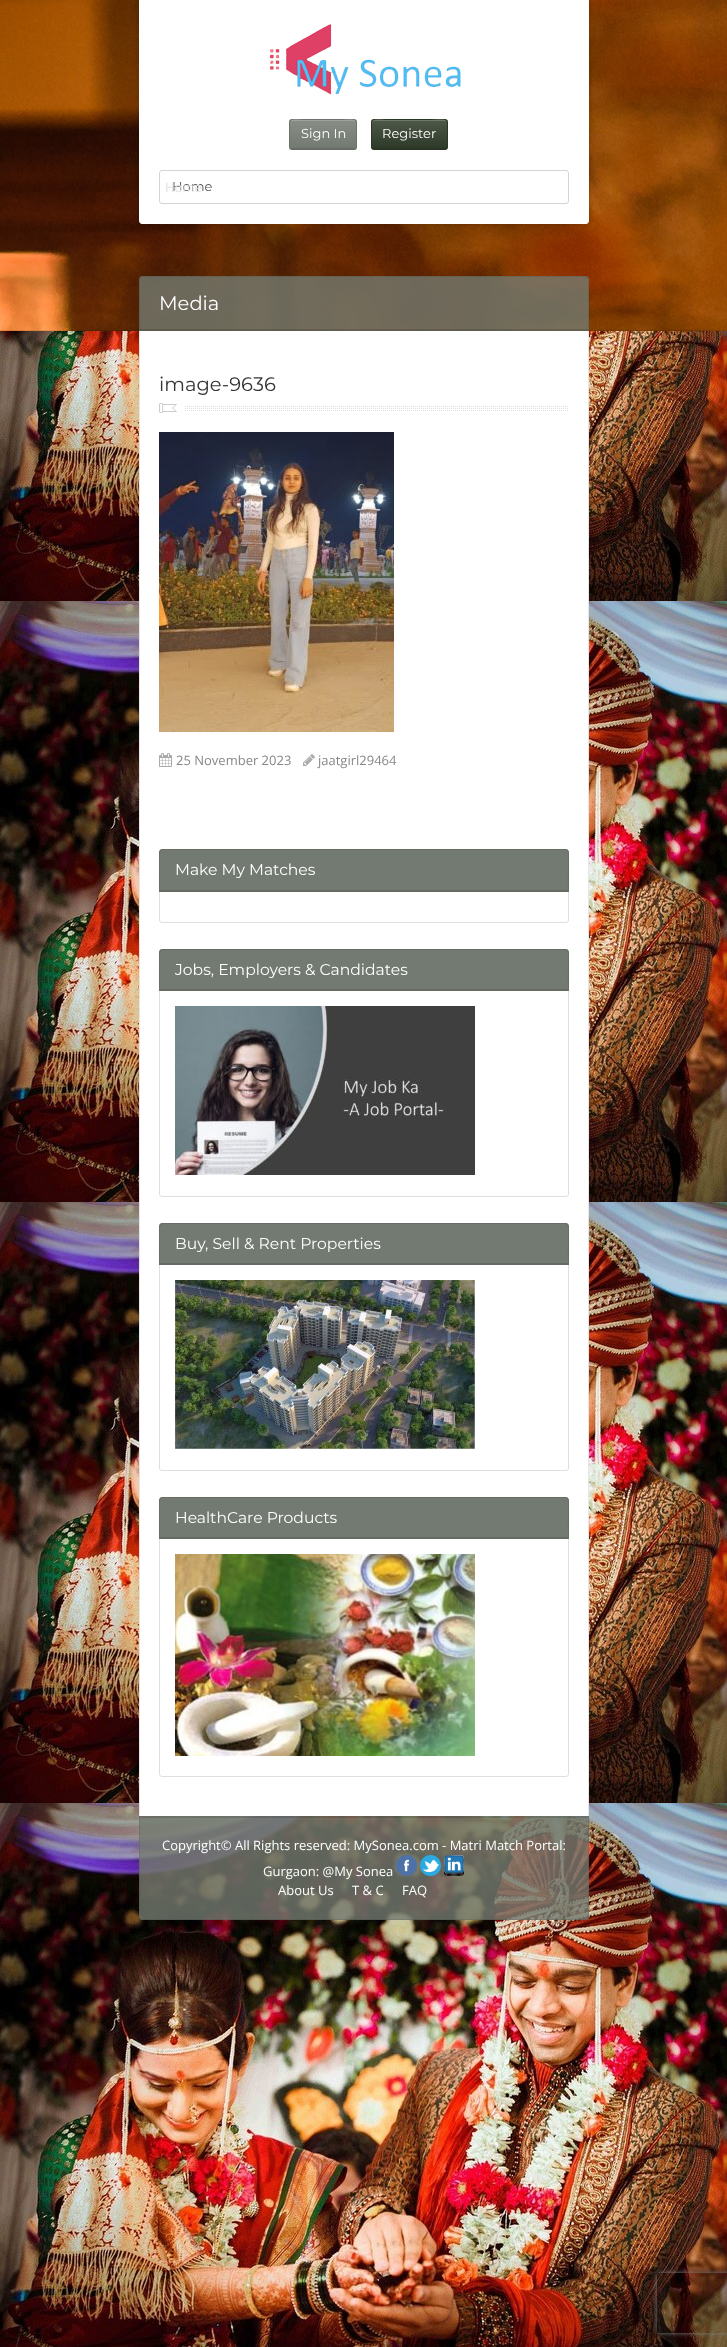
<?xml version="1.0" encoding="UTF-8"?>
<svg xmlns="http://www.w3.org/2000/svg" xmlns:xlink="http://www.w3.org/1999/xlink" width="727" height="2347">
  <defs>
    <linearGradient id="g1" gradientUnits="userSpaceOnUse" x1="323" y1="120" x2="323" y2="148"><stop offset="0" stop-color="#ffffff" stop-opacity="0.15" /><stop offset="1" stop-color="#ffffff" stop-opacity="0" /></linearGradient>
    <linearGradient id="g2" gradientUnits="userSpaceOnUse" x1="410" y1="120" x2="410" y2="148"><stop offset="0" stop-color="#ffffff" stop-opacity="0.15" /><stop offset="1" stop-color="#ffffff" stop-opacity="0" /></linearGradient>
    <clipPath id="clip1"><path d="M 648 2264 h 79 v 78 h -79 z m 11 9 h 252 c 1 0 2 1 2 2 v 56 c 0 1 -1 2 -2 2 h -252 c -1 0 -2 -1 -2 -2 v -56 c 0 -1 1 -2 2 -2 z" clip-rule="evenodd" /></clipPath>
  </defs>
  <rect width="100%" height="100%" fill="#ffffff" />
  <image x="0" y="331" width="727" height="2016" xlink:href="image1.png" />
  <image x="0" y="0" width="727" height="331" xlink:href="image2.png" />
  <rect y="330" width="727" height="1" fill="#000000" fill-opacity="0.1" />
  <rect x="139" width="450" height="224" rx="3" fill="#000000" fill-opacity="0.2" filter="blur(2.5px)" />
  <path d="M 139 0 h 450 v 221 c 0 1.5 -1.5 3 -3 3 h -444 c -1.5 0 -3 -1.5 -3 -3 z" fill="#ffffff" />
  <image x="270" y="24" width="191" height="71" xlink:href="image3.png" />
  <rect x="289" y="119" width="68" height="31" rx="3" fill="#737a71" />
  <path d="M 292 119 l -2 1 l 1 1 l 1 -1 h 62 l 1 1 l 1 -1 l -2 -1 z" fill="#000000" fill-opacity="0.05" />
  <path d="M 357 147 v -25 c 0 -1 0 -2 -1 -2 l -0.5 0.5 l 0.5 1.5 v 25.5 l 0.5 1.5 z" fill="#000000" fill-opacity="0.05" />
  <path d="M 292 150 h 63 l 1 -1 v -1 h -1 h -64 h -1 v 1 z" fill="#000000" fill-opacity="0.1" />
  <path d="M 289 122 v 25 c 0 1 0 1.5 0.5 2 l 0.5 -1.5 v -25.5 l 0.5 -1.5 l -0.5 -0.5 c -1 0 -1 1 -1 2 z" fill="#000000" fill-opacity="0.05" />
  <rect x="290" y="120" width="66" height="28" rx="3" fill="url(#g1)" />
  <path d="M 293 121 h 60 c 2 0 3 1 3 3 c 0 -7 -9 -4 -13 -4 h -40 c -4 0 -13 -3 -13 4 c 0 -2 1 -3 3 -3 z" fill="#ffffff" fill-opacity="0.2" />
  <rect x="371" y="119" width="77" height="31" rx="3" fill="#2e3a29" />
  <path d="M 374 119 l -2 1 l 1 1 l 1 -1 h 71 l 1 1 l 1 -1 l -2 -1 z" fill="#000000" fill-opacity="0.05" />
  <path d="M 448 147 v -25 c 0 -1 0 -2 -1 -2 l -0.5 0.5 l 0.5 1.5 v 25.5 l 0.5 1.5 z" fill="#000000" fill-opacity="0.05" />
  <path d="M 374 150 h 72 l 1 -1 v -1 h -1 h -60 h -14 v 1 z" fill="#000000" fill-opacity="0.1" />
  <path d="M 371 122 v 25 c 0 1 0 1.5 0.5 2 l 0.5 -1.5 v -25.5 l 0.5 -1.5 l -0.5 -0.5 c -1 0 -1 1 -1 2 z" fill="#000000" fill-opacity="0.05" />
  <rect x="372" y="120" width="75" height="28" rx="3" fill="url(#g2)" />
  <path d="M 375 121 h 69 c 2 0 3 1 3 3 c 0 -7 -10 -4 -15 -4 h -46 c -4 0 -14 -3 -14 4 c 0 -2 1 -3 3 -3 z" fill="#ffffff" fill-opacity="0.2" />
  <rect x="159.5" y="170.5" width="409" height="33" rx="2.5" fill="none" stroke="#d4d4d4" />
  <path d="M 142 276 h 444 c 1.5 0 3 1.5 3 3 v 52 h -450 v -52 c 0 -1.5 1.5 -3 3 -3 z" fill="#737a71" fill-opacity="0.8" />
  <path d="M 142 276 l -2 1 l 1 1 l 1 -1 h 444 l 1 1 l 1 -1 l -2 -1 z" fill="#000000" fill-opacity="0.08" />
  <path d="M 589 331 c 0 -6 1 -52 -1 -54 l -1 1 l 1 1 v 50 z" fill="#000000" fill-opacity="0.08" />
  <path d="M 589 331 l -1 -2 h -448 l -1 2 z" fill="#000000" fill-opacity="0.12" />
  <path d="M 139 331 l 1 -2 v -50 l 1 -1 l -1 -1 l -1 2 z" fill="#000000" fill-opacity="0.08" />
  <rect x="140" y="331" width="448" height="1485" fill="#ffffff" />
  <rect x="588" y="331" width="1" height="1485" fill="#e6e6e6" />
  <rect x="139" y="331" width="1" height="1485" fill="#e6e6e6" />
  <image x="184" y="406" width="384" height="5" xlink:href="image4.png" />
  <image x="159" y="403" width="25" height="10" xlink:href="image5.png" />
  <image x="159" y="432" width="235" height="300" xlink:href="image6.png" />
  <image x="159" y="753" width="13" height="14" xlink:href="image7.png" />
  <image x="303" y="754" width="12" height="12" xlink:href="image8.png" />
  <rect x="159.5" y="849.5" width="409" height="73" rx="2.5" fill="none" stroke="#dfdfdf" />
  <path d="M 162 849 h 404 c 1.5 0 3 1.5 3 3 v 40 h -410 v -40 c 0 -1.5 1.5 -3 3 -3 z" fill="#737a71" />
  <path d="M 162 849 l -2 1 l 1 1 l 1 -1 h 404 l 1 1 l 1 -1 l -2 -1 z" fill="#000000" fill-opacity="0.1" />
  <path d="M 569 892 c 0 -5 1 -40 -1 -42 l -1 1 c 3 2 -1 34 2 41 z" fill="#000000" fill-opacity="0.1" />
  <path d="M 569 892 l -1 -2 h -408 l -1 2 z" fill="#656b63" />
  <path d="M 159 892 c 3 -7 -1 -39 2 -41 l -1 -1 l -1 2 z" fill="#000000" fill-opacity="0.1" />
  <rect x="159.5" y="949.5" width="409" height="247" rx="2.5" fill="none" stroke="#dfdfdf" />
  <path d="M 162 949 h 404 c 1.5 0 3 1.5 3 3 v 39 h -410 v -39 c 0 -1.5 1.5 -3 3 -3 z" fill="#737a71" />
  <path d="M 162 949 l -2 1 l 1 1 l 1 -1 h 404 l 1 1 l 1 -1 l -2 -1 z" fill="#000000" fill-opacity="0.1" />
  <path d="M 569 991 c 0 -5 1 -39 -1 -41 l -1 1 c 3 2 -1 33 2 40 z" fill="#000000" fill-opacity="0.1" />
  <path d="M 569 991 l -1 -2 h -408 l -1 2 z" fill="#656b63" />
  <path d="M 159 991 c 3 -7 -1 -38 2 -40 l -1 -1 l -1 2 z" fill="#000000" fill-opacity="0.1" />
  <image x="175" y="1006" width="300" height="169" xlink:href="image9.png" />
  <rect x="159.5" y="1223.5" width="409" height="247" rx="2.5" fill="none" stroke="#dfdfdf" />
  <path d="M 162 1223 h 404 c 1.5 0 3 1.5 3 3 v 39 h -410 v -39 c 0 -1.5 1.5 -3 3 -3 z" fill="#737a71" />
  <path d="M 162 1223 l -2 1 l 1 1 l 1 -1 h 404 l 1 1 l 1 -1 l -2 -1 z" fill="#000000" fill-opacity="0.1" />
  <path d="M 569 1265 c 0 -5 1 -39 -1 -41 l -1 1 c 3 2 -1 33 2 40 z" fill="#000000" fill-opacity="0.1" />
  <path d="M 569 1265 l -1 -2 h -408 l -1 2 z" fill="#656b63" />
  <path d="M 159 1265 c 3 -7 -1 -38 2 -40 l -1 -1 l -1 2 z" fill="#000000" fill-opacity="0.1" />
  <image x="175" y="1280" width="300" height="169" xlink:href="image10.png" />
  <rect x="159.5" y="1497.5" width="409" height="279" rx="2.5" fill="none" stroke="#dfdfdf" />
  <path d="M 162 1497 h 404 c 1.5 0 3 1.5 3 3 v 39 h -410 v -39 c 0 -1.5 1.5 -3 3 -3 z" fill="#737a71" />
  <path d="M 162 1497 l -2 1 l 1 1 l 1 -1 h 404 l 1 1 l 1 -1 l -2 -1 z" fill="#000000" fill-opacity="0.1" />
  <path d="M 569 1539 c 0 -5 1 -39 -1 -41 l -1 1 c 3 2 -1 33 2 40 z" fill="#000000" fill-opacity="0.1" />
  <path d="M 569 1539 l -1 -2 h -408 l -1 2 z" fill="#656b63" />
  <path d="M 159 1539 c 3 -7 -1 -38 2 -40 l -1 -1 l -1 2 z" fill="#000000" fill-opacity="0.1" />
  <image x="175" y="1554" width="300" height="202" xlink:href="image11.png" />
  <path d="M 139 1816 h 450 v 101 c 0 1.5 -1.5 3 -3 3 h -444 c -1.5 0 -3 -1.5 -3 -3 z" fill="#737a71" fill-opacity="0.8" />
  <path d="M 139 1816 h 450 l -1 2 h -448 z" fill="#000000" fill-opacity="0.12" />
  <path d="M 589 1816 l -1 2 v 101 l 1 -2 z" fill="#000000" fill-opacity="0.08" />
  <path d="M 142 1920 h 444 l 2 -1 h -448 z" fill="#000000" fill-opacity="0.08" />
  <path d="M 139 1816 v 101 l 1 2 v -101 z" fill="#000000" fill-opacity="0.08" />
  <image x="396" y="1855" width="21" height="21" xlink:href="image12.png" />
  <image x="420" y="1855" width="21" height="21" xlink:href="image13.png" />
  <image x="444" y="1855" width="20" height="21" xlink:href="image14.png" />
  <g clip-path="url(#clip1)">
    <rect x="657" y="2273" width="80" height="60" rx="2" fill="#808080" filter="blur(2.5px)" />
  </g>
  <text x="301" y="138" style="font-family: Montserrat; font-size: 13px; font-weight: 100; fill: #ffffff">Sign In</text>
  <text x="382" y="138" style="font-family: Montserrat; font-size: 13px; font-weight: 100; fill: #ffffff">Register</text>
  <text x="172" y="191" style="font-family: Montserrat; font-size: 13px; font-weight: 100; fill: #555555">Home</text>
  <text x="165" y="192" style="font-family: Open Sans; font-size: 13px; fill: #e2e2e2">Home</text>
  <text x="159" y="310" style="font-family: Montserrat; font-size: 19.5px; font-weight: 100; fill: #ffffff">Media</text>
  <text x="159" y="391" style="font-family: Montserrat; font-size: 19.5px; font-weight: 100; fill: #333333">image-9636</text>
  <text x="176" y="765" style="font-family: Open Sans; font-size: 13px; fill: #888888">25 November 2023</text>
  <text x="318" y="765" style="font-family: Open Sans; font-size: 13px; fill: #888888">jaatgirl29464</text>
  <text x="175" y="875" style="font-family: Montserrat; font-size: 15.6px; font-weight: 100; fill: #ffffff">Make My Matches</text>
  <text x="175" y="975" style="font-family: Montserrat; font-size: 15.6px; font-weight: 100; fill: #ffffff">Jobs, Employers &amp; Candidates</text>
  <text x="175" y="1249" style="font-family: Montserrat; font-size: 15.6px; font-weight: 100; fill: #ffffff">Buy, Sell &amp; Rent Properties</text>
  <text x="175" y="1523" style="font-family: Montserrat; font-size: 15.6px; font-weight: 100; fill: #ffffff">HealthCare Products</text>
  <text x="162" y="1850" style="font-family: Open Sans; font-size: 13px; fill: #ffffff">Copyright© All Rights reserved: MySonea.com - Matri Match Portal:</text>
  <text x="263" y="1876" style="font-family: Open Sans; font-size: 13px; fill: #ffffff">Gurgaon: @My Sonea</text>
  <text x="278" y="1895" style="font-family: Open Sans; font-size: 13px; fill: #ffffff">About Us</text>
  <text x="352" y="1895" style="font-family: Open Sans; font-size: 13px; fill: #ffffff">T &amp; C</text>
  <text x="402" y="1895" style="font-family: Open Sans; font-size: 13px; fill: #ffffff">FAQ</text>
</svg>
